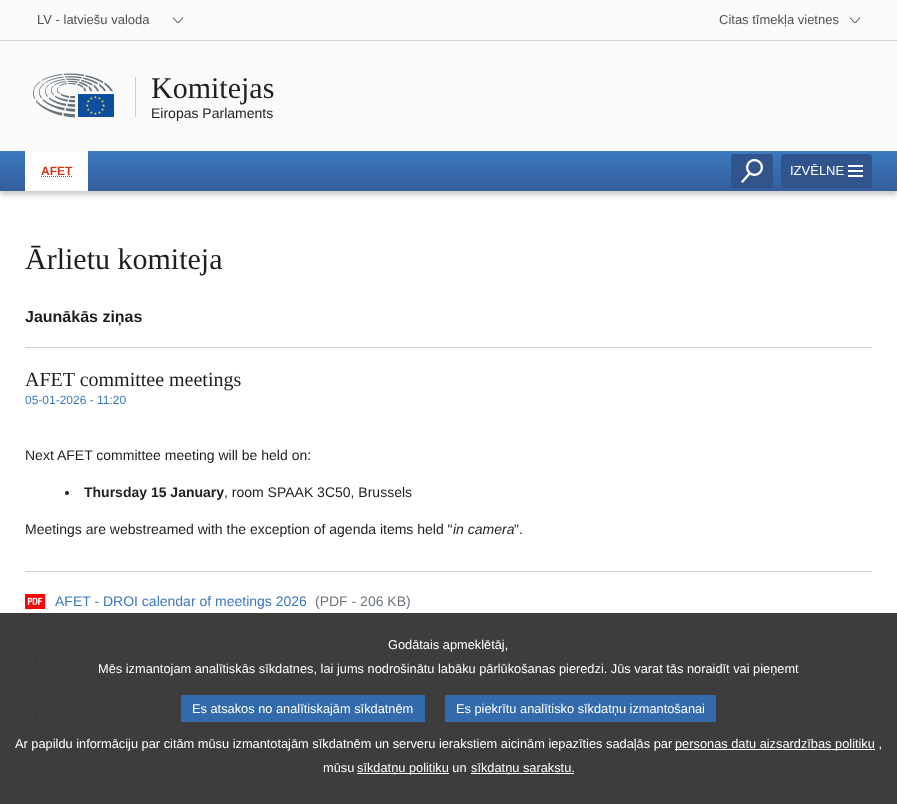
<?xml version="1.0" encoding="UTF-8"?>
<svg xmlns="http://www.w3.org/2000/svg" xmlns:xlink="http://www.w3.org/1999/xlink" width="897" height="804">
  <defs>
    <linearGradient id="g1" gradientUnits="userSpaceOnUse" x1="449" y1="151" x2="449" y2="191"><stop offset="0" stop-color="#3d7ac1" /><stop offset="1" stop-color="#345e9c" /></linearGradient>
  </defs>
  <rect width="100%" height="100%" fill="#ffffff" />
  <rect y="613" width="897" height="191" fill="#3d3d3d" />
  <rect width="897" height="151" fill="#fafafa" />
  <rect y="40" width="897" height="1" fill="#d1d3d4" />
  <image x="173" y="17" width="10" height="6" xlink:href="image1.png" />
  <image x="850" y="17" width="10" height="6" xlink:href="image1.png" />
  <rect x="135" y="77" width="1" height="40" fill="#cccccc" />
  <image x="32" y="73" width="82" height="45" xlink:href="image2.png" />
  <rect y="155" width="897" height="40" fill="#000000" fill-opacity="0.2" filter="blur(2.5px)" />
  <rect y="151" width="897" height="40" fill="url(#g1)" />
  <rect x="25" y="151" width="63" height="40" fill="#ffffff" />
  <path d="M 41 176.5 h 31.5" fill="none" stroke="#d2391c" stroke-dasharray="1 1" />
  <rect x="731.5" y="154.5" width="41" height="33" rx="2.5" fill="#32548d" stroke="#32548d" />
  <image x="741" y="159" width="22" height="24" xlink:href="image3.png" />
  <rect x="781.5" y="154.5" width="90" height="33" rx="2.5" fill="#32548d" stroke="#32548d" />
  <rect x="848" y="170" width="15" height="2" fill="#ffffff" />
  <rect x="848" y="165" width="15" height="2" fill="#ffffff" />
  <rect x="848" y="175" width="15" height="2" fill="#ffffff" />
  <rect x="25" y="347" width="847" height="1" fill="#d1d3d4" />
  <circle cx="67" cy="493" r="2" fill="#1e1e1f" />
  <rect x="25" y="571" width="847" height="1" fill="#d1d3d4" />
  <image x="25" y="594" width="20" height="15" xlink:href="image4.png" />
  <image x="31" y="654" width="7" height="11" xlink:href="image5.png" />
  <image x="31" y="709" width="7" height="11" xlink:href="image6.png" />
  <rect x="181" y="695" width="244" height="27" fill="#326aab" />
  <rect x="445" y="695" width="271" height="27" fill="#326aab" />
  <rect x="675" y="749" width="200" height="1" fill="#ffffff" />
  <rect x="357" y="773" width="92" height="1" fill="#ffffff" />
  <rect x="471" y="773" width="103" height="1" fill="#ffffff" />
  <text x="37" y="24" style="font-family: Liberation Sans; font-size: 13px; fill: #505154">LV - latviešu valoda</text>
  <text x="719" y="24" style="font-family: Liberation Sans; font-size: 13px; fill: #505154">Citas tīmekļa vietnes</text>
  <text x="151" y="98" style="font-family: Liberation Serif; font-size: 30px; fill: #1e1e1f">Komitejas</text>
  <text x="151" y="118" style="font-family: Liberation Sans; font-size: 14px; fill: #1e1e1f">Eiropas Parlaments</text>
  <text x="41" y="175" style="font-family: Liberation Sans; font-size: 12px; font-weight: bold; fill: #d2391c">AFET</text>
  <text x="790" y="175" style="font-family: Liberation Sans; font-size: 13px; fill: #ffffff">IZVĒLNE</text>
  <text x="25" y="269" style="font-family: Liberation Serif; font-size: 30px; fill: #1e1e1f">Ārlietu komiteja</text>
  <text x="25" y="322" style="font-family: Liberation Sans; font-size: 16px; font-weight: bold; fill: #1e1e1f">Jaunākās ziņas</text>
  <text x="25" y="386" style="font-family: Liberation Serif; font-size: 20px; fill: #1e1e1f">AFET committee meetings</text>
  <text x="25" y="404" style="font-family: Liberation Sans; font-size: 12px; fill: #3c77bd">05-01-2026 - 11:20</text>
  <text x="25" y="460" style="font-family: Liberation Sans; font-size: 14px; fill: #1e1e1f">Next AFET committee meeting will be held on:</text>
  <text x="84" y="497" style="font-family: Liberation Sans; font-size: 14px; font-weight: bold; fill: #1e1e1f">Thursday 15 January</text>
  <text x="224" y="497" style="font-family: Liberation Sans; font-size: 14px; fill: #1e1e1f">, room SPAAK 3C50, Brussels</text>
  <text x="25" y="534" style="font-family: Liberation Sans; font-size: 14px; fill: #1e1e1f">Meetings are webstreamed with the exception of agenda items held "</text>
  <text x="453" y="534" style="font-family: Liberation Sans; font-size: 14px; font-style: italic; fill: #1e1e1f">in camera</text>
  <text x="514" y="534" style="font-family: Liberation Sans; font-size: 14px; fill: #1e1e1f">".</text>
  <text x="55" y="606" style="font-family: Liberation Sans; font-size: 14px; fill: #3c77bd">AFET - DROI calendar of meetings 2026</text>
  <text x="315" y="606" style="font-family: Liberation Sans; font-size: 14px; fill: #6c757d">(PDF - 206 KB)</text>
  <text x="388" y="649" style="font-family: Liberation Sans; font-size: 12.8px; fill: #ffffff">Godātais apmeklētāj,</text>
  <text x="98" y="673" style="font-family: Liberation Sans; font-size: 12.8px; fill: #ffffff">Mēs izmantojam analītiskās sīkdatnes, lai jums nodrošinātu labāku pārlūkošanas pieredzi. Jūs varat tās noraidīt vai pieņemt</text>
  <text x="192" y="713" style="font-family: Liberation Sans; font-size: 12.8px; fill: #ffffff">Es atsakos no analītiskajām sīkdatnēm</text>
  <text x="456" y="713" style="font-family: Liberation Sans; font-size: 12.8px; fill: #ffffff">Es piekrītu analītisko sīkdatņu izmantošanai</text>
  <text x="15" y="748" style="font-family: Liberation Sans; font-size: 12.8px; fill: #ffffff">Ar papildu informāciju par citām mūsu izmantotajām sīkdatnēm un serveru ierakstiem aicinām iepazīties sadaļās par</text>
  <text x="675" y="748" style="font-family: Liberation Sans; font-size: 12.8px; fill: #ffffff">personas datu aizsardzības politiku ,</text>
  <text x="323" y="772" style="font-family: Liberation Sans; font-size: 12.8px; fill: #ffffff">mūsu</text>
  <text x="357" y="772" style="font-family: Liberation Sans; font-size: 12.8px; fill: #ffffff">sīkdatņu politiku un</text>
  <text x="471" y="772" style="font-family: Liberation Sans; font-size: 12.8px; fill: #ffffff">sīkdatņu sarakstu.</text>
</svg>
